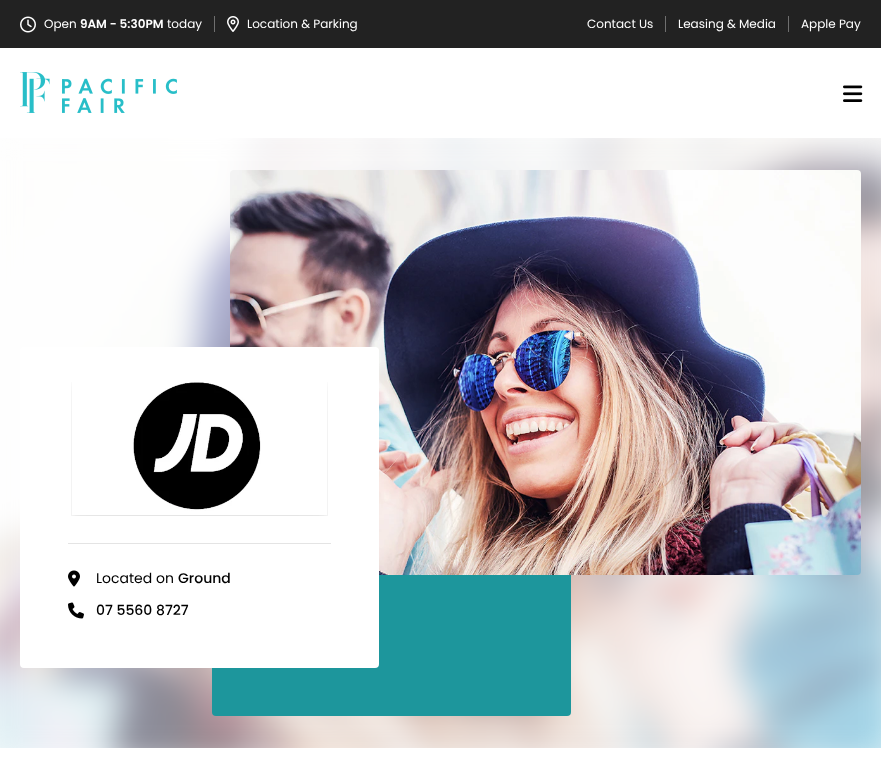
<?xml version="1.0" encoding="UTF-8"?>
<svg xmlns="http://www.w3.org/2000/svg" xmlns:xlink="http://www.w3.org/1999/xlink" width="881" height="782">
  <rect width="100%" height="100%" fill="#ffffff" />
  <rect width="881" height="48" fill="#222222" />
  <image x="20" y="16" width="16" height="17" xlink:href="image1.png" />
  <rect x="214" y="16" width="1" height="16" fill="#6f6f6f" />
  <image x="227" y="16" width="12" height="16" xlink:href="image2.png" />
  <rect x="665" y="16" width="1" height="16" fill="#6f6f6f" />
  <rect x="788" y="16" width="1" height="16" fill="#6f6f6f" />
  <image x="20" y="72" width="157" height="41" xlink:href="image3.png" />
  <image x="843" y="85" width="20" height="17" xlink:href="image4.png" />
  <image x="0" y="138" width="881" height="610" xlink:href="image5.png" />
  <rect x="212" y="524" width="359" height="192" rx="4" fill="#1d969c" />
  <image x="230" y="170" width="631" height="405" xlink:href="image6.png" />
  <rect x="20" y="347" width="359" height="321" rx="4" fill="#ffffff" />
  <image x="71" y="382" width="257" height="134" xlink:href="image7.png" />
  <rect x="68" y="543" width="263" height="1" fill="#e4e4e4" />
  <image x="68" y="570" width="12" height="17" xlink:href="image8.png" />
  <image x="68" y="602" width="16" height="17" xlink:href="image9.png" />
  <text x="44" y="28" style="font-family: Poppins; font-size: 12px; fill: #ffffff">Open</text>
  <text x="80" y="28" style="font-family: Poppins; font-size: 12px; font-weight: 600; fill: #ffffff">9AM - 5:30PM</text>
  <text x="167" y="28" style="font-family: Poppins; font-size: 12px; fill: #ffffff">today</text>
  <text x="247" y="28" style="font-family: Poppins; font-size: 12px; fill: #ffffff">Location &amp; Parking</text>
  <text x="587" y="28" style="font-family: Poppins; font-size: 12px; fill: #ffffff">Contact Us</text>
  <text x="678" y="28" style="font-family: Poppins; font-size: 12px; fill: #ffffff">Leasing &amp; Media</text>
  <text x="801" y="28" style="font-family: Poppins; font-size: 12px; fill: #ffffff">Apple Pay</text>
  <text x="96" y="583" style="font-family: Poppins; font-size: 14px; fill: #000000">Located on</text>
  <text x="178" y="583" style="font-family: Poppins; font-size: 14px; font-weight: 500; fill: #000000">Ground</text>
  <text x="96" y="615" style="font-family: Poppins; font-size: 14px; font-weight: 500; fill: #000000">07 5560 8727</text>
</svg>
